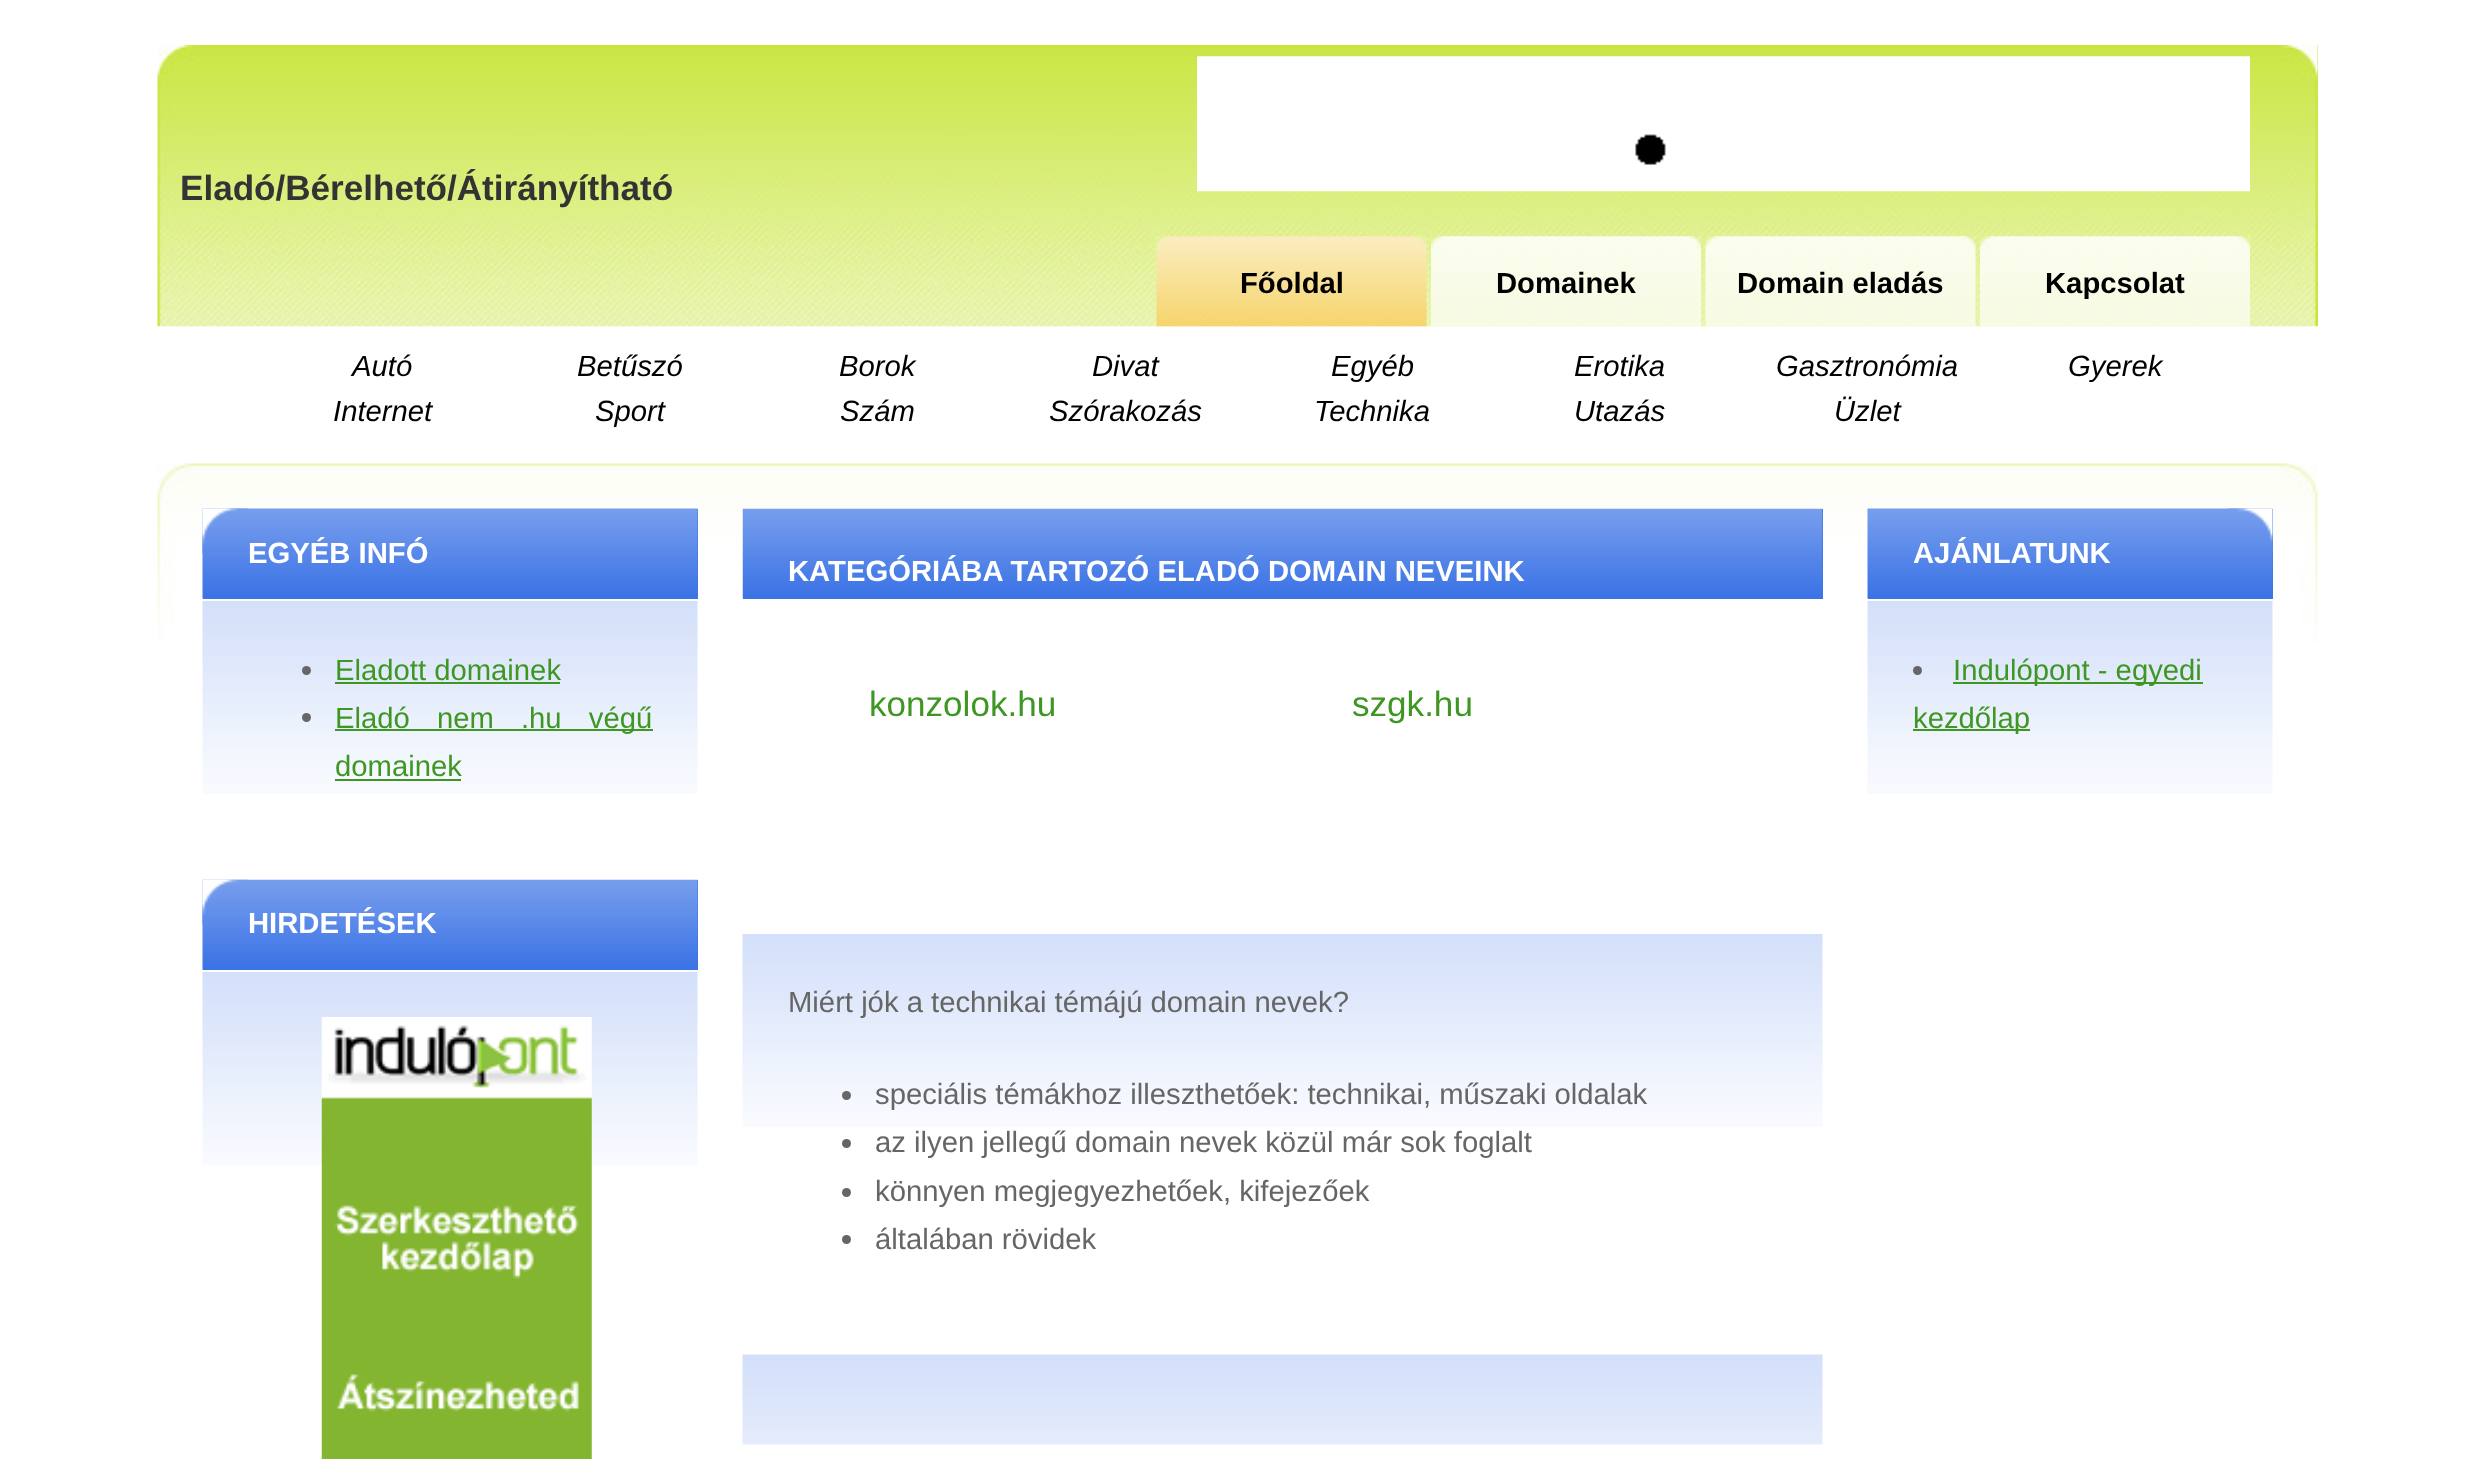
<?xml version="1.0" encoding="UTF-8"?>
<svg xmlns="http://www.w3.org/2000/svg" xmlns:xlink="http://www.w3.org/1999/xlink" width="2473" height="1459">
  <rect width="100%" height="100%" fill="#ffffff" />
  <rect x="2317" y="45" width="1" height="281" fill="#cae646" />
  <image x="157" y="45" width="2161" height="282" xlink:href="image1.png" />
  <image x="1197" y="56" width="1053" height="136" xlink:href="image2.png" />
  <image x="1156" y="236" width="271" height="91" xlink:href="image3.png" />
  <image x="1431" y="236" width="270" height="90" xlink:href="image4.png" />
  <image x="1705" y="236" width="271" height="90" xlink:href="image5.png" />
  <image x="1980" y="236" width="270" height="90" xlink:href="image6.png" />
  <image x="157" y="463" width="2161" height="180" xlink:href="image7.png" />
  <rect x="203" y="509" width="495" height="90" fill="#3c74e6" />
  <image x="202" y="508" width="496" height="91" xlink:href="image8.png" />
  <image x="202" y="508" width="46" height="46" xlink:href="image9.png" />
  <image x="202" y="600" width="496" height="194" xlink:href="image10.png" />
  <rect x="203" y="600" width="495" height="1" fill="#ffffff" />
  <circle cx="306.5" cy="670.5" r="4.5" fill="#666666" />
  <rect x="335" y="682" width="225" height="2" fill="#3e9722" />
  <circle cx="306.5" cy="717.5" r="4.5" fill="#666666" />
  <rect x="335" y="729" width="318" height="2" fill="#3e9722" />
  <rect x="335" y="779" width="126" height="2" fill="#3e9722" />
  <rect x="203" y="880" width="495" height="90" fill="#3c74e6" />
  <image x="202" y="879" width="496" height="91" xlink:href="image11.png" />
  <image x="202" y="879" width="46" height="46" xlink:href="image12.png" />
  <image x="202" y="972" width="496" height="193" xlink:href="image13.png" />
  <image x="321" y="1017" width="271" height="442" xlink:href="image14.png" />
  <rect x="743" y="509" width="1080" height="90" fill="#3c74e6" />
  <image x="742" y="508" width="1081" height="91" xlink:href="image15.png" />
  <image x="742" y="933" width="1081" height="194" xlink:href="image16.png" />
  <rect x="743" y="933" width="1080" height="1" fill="#ffffff" />
  <circle cx="846.5" cy="1095.5" r="4.5" fill="#666666" />
  <circle cx="846.5" cy="1143.5" r="4.5" fill="#666666" />
  <circle cx="846.5" cy="1192.5" r="4.5" fill="#666666" />
  <circle cx="846.5" cy="1239.5" r="4.5" fill="#666666" />
  <image x="742" y="1354" width="1081" height="91" xlink:href="image17.png" />
  <rect x="1868" y="509" width="405" height="90" fill="#3c74e6" />
  <image x="1867" y="508" width="406" height="91" xlink:href="image18.png" />
  <image x="2227" y="508" width="46" height="45" xlink:href="image19.png" />
  <image x="1867" y="600" width="406" height="194" xlink:href="image20.png" />
  <rect x="1868" y="600" width="405" height="1" fill="#ffffff" />
  <circle cx="1917.5" cy="670.5" r="4.5" fill="#666666" />
  <rect x="1953" y="682" width="250" height="2" fill="#3e9722" />
  <rect x="1913" y="729" width="117" height="2" fill="#3e9722" />
  <text x="180" y="200" style="font-family: Liberation Sans; font-size: 35.1px; font-weight: bold; fill: #333333">Eladó/Bérelhető/Átirányítható</text>
  <text x="1240" y="293" style="font-family: Liberation Sans; font-size: 29.25px; font-weight: bold; fill: #000000">Főoldal</text>
  <text x="1496" y="293" style="font-family: Liberation Sans; font-size: 29.25px; font-weight: bold; fill: #000000">Domainek</text>
  <text x="1737" y="293" style="font-family: Liberation Sans; font-size: 29.25px; font-weight: bold; fill: #000000">Domain eladás</text>
  <text x="2045" y="293" style="font-family: Liberation Sans; font-size: 29.25px; font-weight: bold; fill: #000000">Kapcsolat</text>
  <text x="352" y="376" style="font-family: Liberation Sans; font-size: 29.25px; font-style: italic; fill: #000000">Autó</text>
  <text x="577" y="376" style="font-family: Liberation Sans; font-size: 29.25px; font-style: italic; fill: #000000">Betűszó</text>
  <text x="839" y="376" style="font-family: Liberation Sans; font-size: 29.25px; font-style: italic; fill: #000000">Borok</text>
  <text x="1092" y="376" style="font-family: Liberation Sans; font-size: 29.25px; font-style: italic; fill: #000000">Divat</text>
  <text x="1331" y="376" style="font-family: Liberation Sans; font-size: 29.25px; font-style: italic; fill: #000000">Egyéb</text>
  <text x="1574" y="376" style="font-family: Liberation Sans; font-size: 29.25px; font-style: italic; fill: #000000">Erotika</text>
  <text x="1776" y="376" style="font-family: Liberation Sans; font-size: 29.25px; font-style: italic; fill: #000000">Gasztronómia</text>
  <text x="2068" y="376" style="font-family: Liberation Sans; font-size: 29.25px; font-style: italic; fill: #000000">Gyerek</text>
  <text x="333" y="421" style="font-family: Liberation Sans; font-size: 29.25px; font-style: italic; fill: #000000">Internet</text>
  <text x="595" y="421" style="font-family: Liberation Sans; font-size: 29.25px; font-style: italic; fill: #000000">Sport</text>
  <text x="840" y="421" style="font-family: Liberation Sans; font-size: 29.25px; font-style: italic; fill: #000000">Szám</text>
  <text x="1049" y="421" style="font-family: Liberation Sans; font-size: 29.25px; font-style: italic; fill: #000000">Szórakozás</text>
  <text x="1314" y="421" style="font-family: Liberation Sans; font-size: 29.25px; font-style: italic; fill: #000000">Technika</text>
  <text x="1574" y="421" style="font-family: Liberation Sans; font-size: 29.25px; font-style: italic; fill: #000000">Utazás</text>
  <text x="1834" y="421" style="font-family: Liberation Sans; font-size: 29.25px; font-style: italic; fill: #000000">Üzlet</text>
  <text x="248" y="563" style="font-family: Liberation Sans; font-size: 29.25px; font-weight: bold; fill: #ffffff">EGYÉB INFÓ</text>
  <text x="335" y="680" style="font-family: Liberation Sans; font-size: 29.25px; fill: #3e9722">Eladott domainek</text>
  <text x="335" y="728" word-spacing="19" style="font-family: Liberation Sans; font-size: 29.25px; fill: #3e9722">Eladó nem .hu végű</text>
  <text x="335" y="776" style="font-family: Liberation Sans; font-size: 29.25px; fill: #3e9722">domainek</text>
  <text x="248" y="933" style="font-family: Liberation Sans; font-size: 29.25px; font-weight: bold; fill: #ffffff">HIRDETÉSEK</text>
  <text x="788" y="581" style="font-family: Liberation Sans; font-size: 29.25px; font-weight: bold; fill: #ffffff">KATEGÓRIÁBA TARTOZÓ ELADÓ DOMAIN NEVEINK</text>
  <text x="869" y="716" style="font-family: Liberation Sans; font-size: 35.1px; fill: #3e9722">konzolok.hu</text>
  <text x="1352" y="716" style="font-family: Liberation Sans; font-size: 35.1px; fill: #3e9722">szgk.hu</text>
  <text x="788" y="1012" style="font-family: Liberation Sans; font-size: 29.25px; fill: #666666">Miért jók a technikai témájú domain nevek?</text>
  <text x="875" y="1104" style="font-family: Liberation Sans; font-size: 29.25px; fill: #666666">speciális témákhoz illeszthetőek: technikai, műszaki oldalak</text>
  <text x="875" y="1152" style="font-family: Liberation Sans; font-size: 29.25px; fill: #666666">az ilyen jellegű domain nevek közül már sok foglalt</text>
  <text x="875" y="1201" style="font-family: Liberation Sans; font-size: 29.25px; fill: #666666">könnyen megjegyezhetőek, kifejezőek</text>
  <text x="875" y="1249" style="font-family: Liberation Sans; font-size: 29.25px; fill: #666666">általában rövidek</text>
  <text x="1913" y="563" style="font-family: Liberation Sans; font-size: 29.25px; font-weight: bold; fill: #ffffff">AJÁNLATUNK</text>
  <text x="1953" y="680" style="font-family: Liberation Sans; font-size: 29.25px; fill: #3e9722">Indulópont - egyedi</text>
  <text x="1913" y="728" style="font-family: Liberation Sans; font-size: 29.25px; fill: #3e9722">kezdőlap</text>
</svg>
